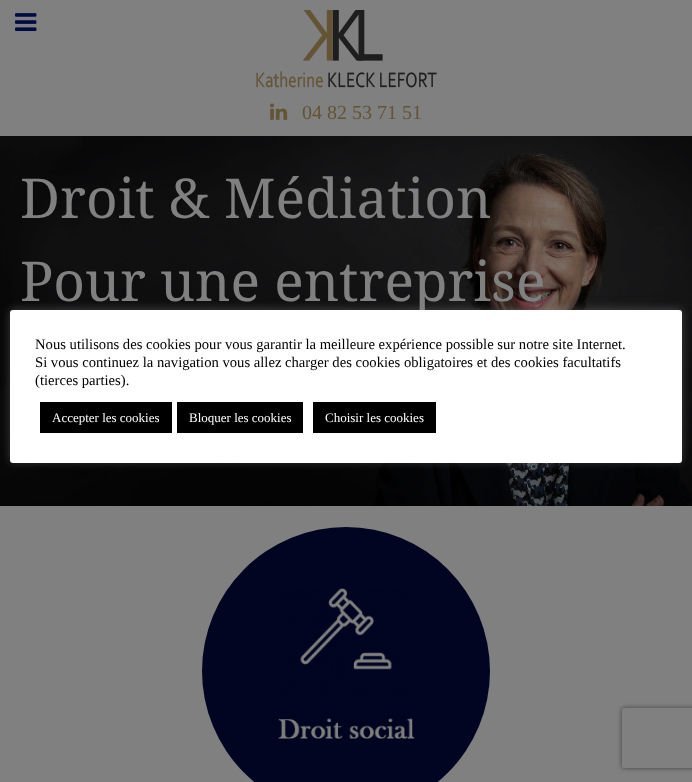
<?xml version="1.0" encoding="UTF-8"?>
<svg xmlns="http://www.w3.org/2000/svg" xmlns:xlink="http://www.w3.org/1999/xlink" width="692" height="782">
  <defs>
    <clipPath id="clip1"><path d="M 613 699 h 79 v 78 h -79 z m 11 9 h 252 c 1 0 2 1 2 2 v 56 c 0 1 -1 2 -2 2 h -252 c -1 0 -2 -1 -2 -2 v -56 c 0 -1 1 -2 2 -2 z" clip-rule="evenodd" /></clipPath>
  </defs>
  <rect width="100%" height="100%" fill="#808080" />
  <image x="15" y="13" width="22" height="18" xlink:href="image1.png" />
  <image x="256" y="10" width="181" height="78" xlink:href="image2.png" />
  <image x="270" y="103" width="18" height="17" xlink:href="image3.png" />
  <image x="0" y="136" width="692" height="370" xlink:href="image4.png" />
  <circle cx="346" cy="671" r="144" fill="#010522" />
  <image x="278" y="588" width="137" height="151" xlink:href="image5.png" />
  <rect x="10" y="309" width="672" height="153" rx="3" fill="#acabab" fill-opacity="0.3" filter="blur(5px)" />
  <g clip-path="url(#clip1)">
    <rect x="622" y="708" width="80" height="60" rx="2" fill="#404040" filter="blur(2.5px)" />
  </g>
  <text x="302" y="119" style="font-family: Liberation Serif; font-size: 20px; fill: #645436">04 82 53 71 51</text>
  <text x="20" y="218" style="font-family: Noto Serif; font-size: 55px; fill: #808080">Droit &amp; Médiation</text>
  <text x="20" y="301" style="font-family: Noto Serif; font-size: 55px; fill: #808080">Pour une entreprise</text>
  <rect x="10" y="310" width="672" height="153" rx="3" fill="#ffffff" />
  <text x="35" y="349" style="font-family: Liberation Serif; font-size: 14.65px; fill: #000000">Nous utilisons des cookies pour vous garantir la meilleure expérience possible sur notre site Internet.</text>
  <text x="35" y="367" style="font-family: Liberation Serif; font-size: 14.65px; fill: #000000">Si vous continuez la navigation vous allez charger des cookies obligatoires et des cookies facultatifs</text>
  <text x="35" y="385" style="font-family: Liberation Serif; font-size: 14.65px; fill: #000000">(tierces parties).</text>
  <rect x="40" y="402" width="132" height="31" fill="#000000" />
  <text x="52" y="422" style="font-family: Liberation Serif; font-size: 13px; fill: #ffffff">Accepter les cookies</text>
  <rect x="177" y="402" width="126" height="31" fill="#000000" />
  <text x="189" y="422" style="font-family: Liberation Serif; font-size: 13px; fill: #ffffff">Bloquer les cookies</text>
  <rect x="313" y="402" width="123" height="31" fill="#000000" />
  <text x="325" y="422" style="font-family: Liberation Serif; font-size: 13px; fill: #ffffff">Choisir les cookies</text>
</svg>
